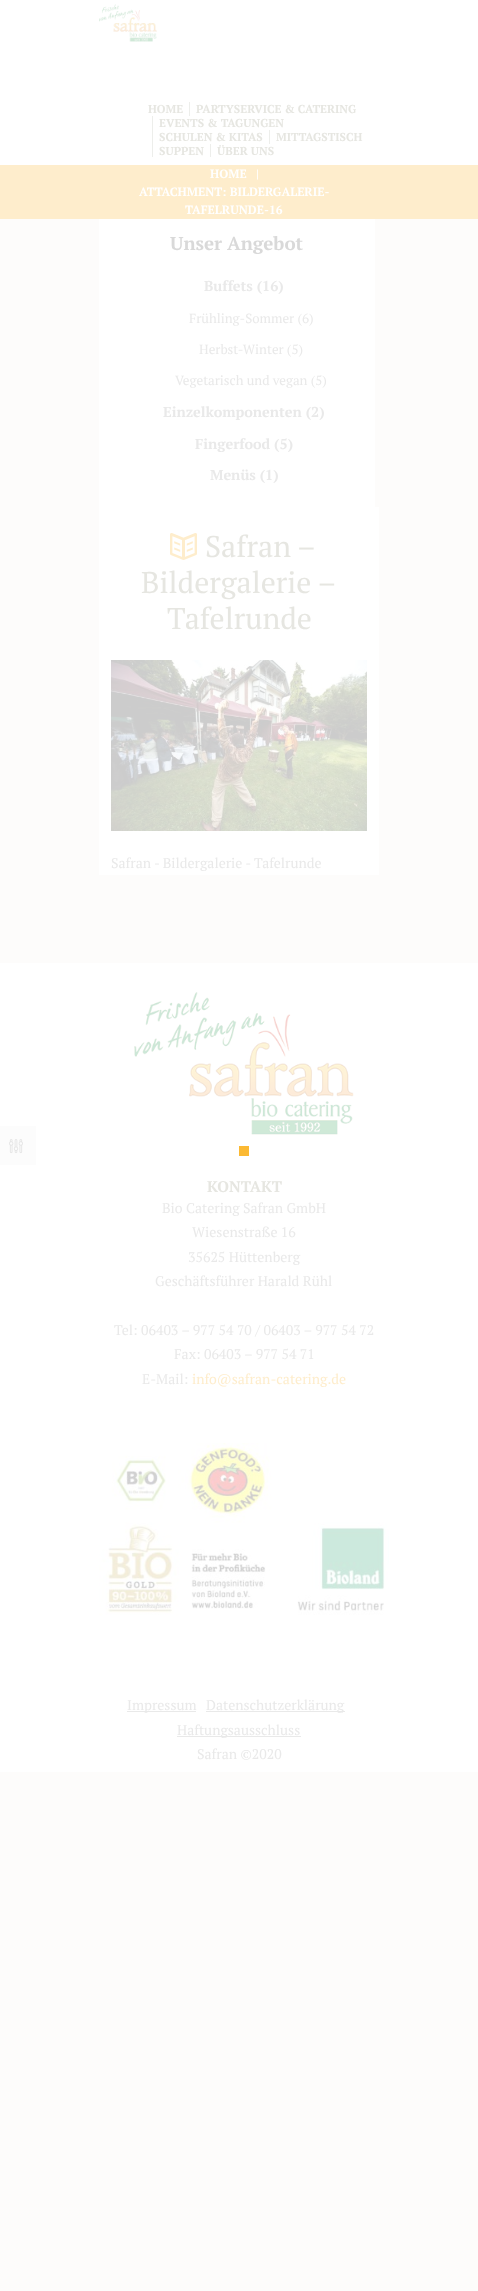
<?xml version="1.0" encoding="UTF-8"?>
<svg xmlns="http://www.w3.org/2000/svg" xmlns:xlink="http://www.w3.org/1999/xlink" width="478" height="2291">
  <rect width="100%" height="100%" fill="#fdfcfb" />
  <rect y="963" width="478" height="809" fill="#ffffff" />
  <rect y="1126" width="36" height="39" fill="#fcfcfc" />
  <image x="9" y="1139" width="14" height="15" xlink:href="image1.png" />
  <rect width="478" height="165" fill="#ffffff" />
  <image x="99" y="4" width="58" height="38" xlink:href="image2.png" />
  <rect x="189" y="102" width="1" height="14" fill="#edeeeb" />
  <rect x="269" y="130" width="1" height="14" fill="#edeeeb" />
  <rect x="152" y="116" width="1" height="41" fill="#edeeeb" />
  <rect x="210" y="144" width="1" height="13" fill="#edeeeb" />
  <rect y="165" width="478" height="54" fill="#feedcc" />
  <rect x="99" y="219" width="276" height="288" fill="#ffffff" />
  <rect x="99" y="507" width="280" height="368" fill="#ffffff" />
  <image x="170" y="533" width="27" height="27" xlink:href="image3.png" />
  <image x="111" y="660" width="256" height="171" xlink:href="image4.png" />
  <image x="134" y="992" width="220" height="143" xlink:href="image5.png" />
  <image x="99" y="1443" width="290" height="173" xlink:href="image6.png" />
  <rect x="127" y="1711" width="69" height="1" fill="#e9e9e9" />
  <rect x="206" y="1711" width="139" height="1" fill="#e9e9e9" />
  <rect x="177" y="1736" width="124" height="1" fill="#e9e9e9" />
  <rect x="239" y="1146" width="10" height="10" fill="#fbb933" />
  <text x="148" y="113" style="font-family: PT Serif; font-size: 11.5px; font-weight: bold; fill: #e6e6e1">HOME</text>
  <text x="196" y="113" style="font-family: PT Serif; font-size: 11.5px; font-weight: bold; fill: #e6e6e1">PARTYSERVICE &amp; CATERING</text>
  <text x="159" y="127" style="font-family: PT Serif; font-size: 11.5px; font-weight: bold; fill: #e6e6e1">EVENTS &amp; TAGUNGEN</text>
  <text x="159" y="141" style="font-family: PT Serif; font-size: 11.5px; font-weight: bold; fill: #e6e6e1">SCHULEN &amp; KITAS</text>
  <text x="276" y="141" style="font-family: PT Serif; font-size: 11.5px; font-weight: bold; fill: #e6e6e1">MITTAGSTISCH</text>
  <text x="159" y="155" style="font-family: PT Serif; font-size: 11.5px; font-weight: bold; fill: #e6e6e1">SUPPEN</text>
  <text x="217" y="155" style="font-family: PT Serif; font-size: 11.5px; font-weight: bold; fill: #e6e6e1">ÜBER UNS</text>
  <text x="210" y="178" style="font-family: PT Serif; font-size: 12px; font-weight: bold; fill: #ffffff">HOME</text>
  <text x="256" y="178" style="font-family: PT Serif; font-size: 12px; font-weight: bold; fill: #ffffff">|</text>
  <text x="139" y="196" style="font-family: PT Serif; font-size: 12px; font-weight: bold; fill: #ffffff">ATTACHMENT: BILDERGALERIE-</text>
  <text x="185" y="214" style="font-family: PT Serif; font-size: 12px; font-weight: bold; fill: #ffffff">TAFELRUNDE-16</text>
  <text x="170" y="250" style="font-family: PT Serif; font-size: 18.75px; font-weight: bold; fill: #d9d9d9">Unser Angebot</text>
  <text x="204" y="291" style="font-family: PT Serif; font-size: 14.4px; font-weight: bold; fill: #e9e9e9">Buffets (16)</text>
  <text x="189" y="323" style="font-family: PT Serif; font-size: 13.25px; fill: #e9e9e9">Frühling-Sommer (6)</text>
  <text x="199" y="354" style="font-family: PT Serif; font-size: 13.25px; fill: #e9e9e9">Herbst-Winter (5)</text>
  <text x="175" y="385" style="font-family: PT Serif; font-size: 13.25px; fill: #e9e9e9">Vegetarisch und vegan (5)</text>
  <text x="163" y="417" style="font-family: PT Serif; font-size: 14.4px; font-weight: bold; fill: #e9e9e9">Einzelkomponenten (2)</text>
  <text x="195" y="449" style="font-family: PT Serif; font-size: 14.4px; font-weight: bold; fill: #e9e9e9">Fingerfood (5)</text>
  <text x="210" y="480" style="font-family: PT Serif; font-size: 14.4px; font-weight: bold; fill: #e9e9e9">Menüs (1)</text>
  <text x="205" y="557" style="font-family: PT Serif; font-size: 30px; fill: #e6e6e1">Safran –</text>
  <text x="141" y="593" style="font-family: PT Serif; font-size: 30px; fill: #e6e6e1">Bildergalerie –</text>
  <text x="167" y="629" style="font-family: PT Serif; font-size: 30px; fill: #e6e6e1">Tafelrunde</text>
  <text x="111" y="868" style="font-family: PT Serif; font-size: 14px; fill: #e9e9e9">Safran - Bildergalerie - Tafelrunde</text>
  <text x="207" y="1192" style="font-family: PT Serif; font-size: 15.5px; font-weight: bold; fill: #e6e6e1">KONTAKT</text>
  <text x="162" y="1213" style="font-family: PT Serif; font-size: 14px; fill: #e9e9e9">Bio Catering Safran GmbH</text>
  <text x="192" y="1237" style="font-family: PT Serif; font-size: 14px; fill: #e9e9e9">Wiesenstraße 16</text>
  <text x="188" y="1262" style="font-family: PT Serif; font-size: 14px; fill: #e9e9e9">35625 Hüttenberg</text>
  <text x="155" y="1286" style="font-family: PT Serif; font-size: 14px; fill: #e9e9e9">Geschäftsführer Harald Rühl</text>
  <text x="114" y="1335" style="font-family: PT Serif; font-size: 14px; fill: #e9e9e9">Tel: 06403 – 977 54 70 / 06403 – 977 54 72</text>
  <text x="174" y="1359" style="font-family: PT Serif; font-size: 14px; fill: #e9e9e9">Fax: 06403 – 977 54 71</text>
  <text x="142" y="1384" style="font-family: PT Serif; font-size: 14px; fill: #e9e9e9">E-Mail:</text>
  <text x="192" y="1384" style="font-family: PT Serif; font-size: 14px; fill: #feedcc">info@safran-catering.de</text>
  <text x="127" y="1710" style="font-family: PT Serif; font-size: 14px; fill: #e9e9e9">Impressum</text>
  <text x="206" y="1710" style="font-family: PT Serif; font-size: 14px; fill: #e9e9e9">Datenschutzerklärung</text>
  <text x="177" y="1735" style="font-family: PT Serif; font-size: 14px; fill: #e9e9e9">Haftungsausschluss</text>
  <text x="197" y="1759" style="font-family: PT Serif; font-size: 14px; fill: #e9e9e9">Safran ©2020</text>
</svg>
